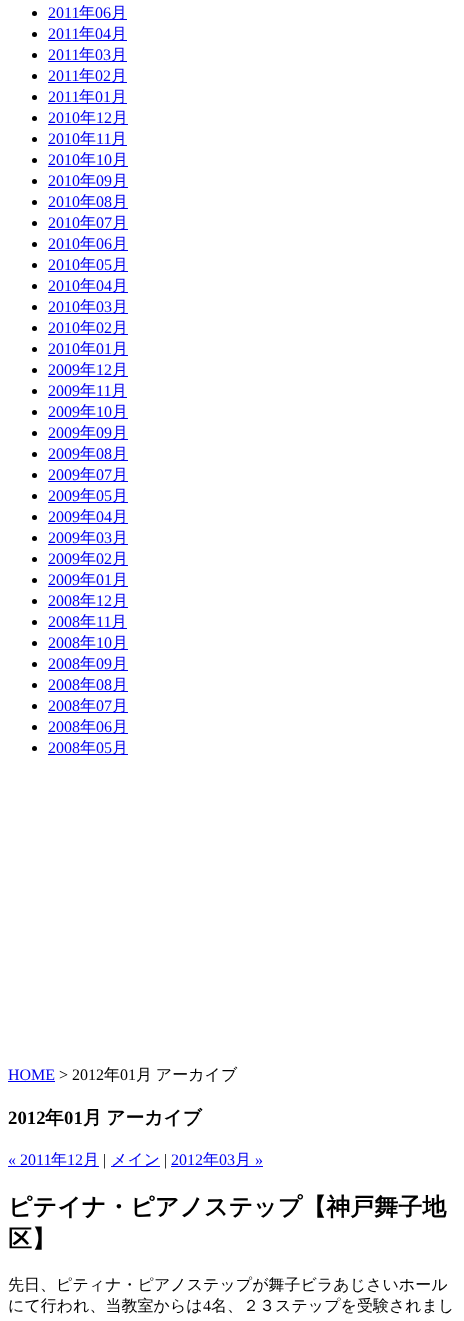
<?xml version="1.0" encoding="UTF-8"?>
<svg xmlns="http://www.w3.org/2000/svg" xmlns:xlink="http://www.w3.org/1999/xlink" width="464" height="1321">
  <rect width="100%" height="100%" fill="#ffffff" />
  <circle cx="34.5" cy="13.5" r="2.5" fill="#000000" />
  <rect x="48" y="19" width="79" height="1" fill="#0000ee" />
  <circle cx="34.5" cy="34.5" r="2.5" fill="#000000" />
  <rect x="48" y="40" width="79" height="1" fill="#0000ee" />
  <circle cx="34.5" cy="55.5" r="2.5" fill="#000000" />
  <rect x="48" y="61" width="79" height="1" fill="#0000ee" />
  <circle cx="34.5" cy="76.5" r="2.5" fill="#000000" />
  <rect x="48" y="82" width="79" height="1" fill="#0000ee" />
  <circle cx="34.5" cy="97.5" r="2.5" fill="#000000" />
  <rect x="48" y="103" width="79" height="1" fill="#0000ee" />
  <circle cx="34.5" cy="118.5" r="2.5" fill="#000000" />
  <rect x="48" y="124" width="80" height="1" fill="#0000ee" />
  <circle cx="34.5" cy="139.5" r="2.5" fill="#000000" />
  <rect x="48" y="145" width="79" height="1" fill="#0000ee" />
  <circle cx="34.5" cy="160.5" r="2.5" fill="#000000" />
  <rect x="48" y="166" width="80" height="1" fill="#0000ee" />
  <circle cx="34.5" cy="181.5" r="2.5" fill="#000000" />
  <rect x="48" y="187" width="80" height="1" fill="#0000ee" />
  <circle cx="34.5" cy="202.5" r="2.5" fill="#000000" />
  <rect x="48" y="208" width="80" height="1" fill="#0000ee" />
  <circle cx="34.5" cy="223.5" r="2.5" fill="#000000" />
  <rect x="48" y="229" width="80" height="1" fill="#0000ee" />
  <circle cx="34.5" cy="244.5" r="2.5" fill="#000000" />
  <rect x="48" y="250" width="80" height="1" fill="#0000ee" />
  <circle cx="34.5" cy="265.5" r="2.5" fill="#000000" />
  <rect x="48" y="271" width="80" height="1" fill="#0000ee" />
  <circle cx="34.5" cy="286.5" r="2.5" fill="#000000" />
  <rect x="48" y="292" width="80" height="1" fill="#0000ee" />
  <circle cx="34.5" cy="307.5" r="2.5" fill="#000000" />
  <rect x="48" y="313" width="80" height="1" fill="#0000ee" />
  <circle cx="34.5" cy="328.5" r="2.5" fill="#000000" />
  <rect x="48" y="334" width="80" height="1" fill="#0000ee" />
  <circle cx="34.5" cy="349.5" r="2.5" fill="#000000" />
  <rect x="48" y="355" width="80" height="1" fill="#0000ee" />
  <circle cx="34.5" cy="370.5" r="2.5" fill="#000000" />
  <rect x="48" y="376" width="80" height="1" fill="#0000ee" />
  <circle cx="34.5" cy="391.5" r="2.5" fill="#000000" />
  <rect x="48" y="397" width="79" height="1" fill="#0000ee" />
  <circle cx="34.5" cy="412.5" r="2.5" fill="#000000" />
  <rect x="48" y="418" width="80" height="1" fill="#0000ee" />
  <circle cx="34.5" cy="433.5" r="2.5" fill="#000000" />
  <rect x="48" y="439" width="80" height="1" fill="#0000ee" />
  <circle cx="34.5" cy="454.5" r="2.5" fill="#000000" />
  <rect x="48" y="460" width="80" height="1" fill="#0000ee" />
  <circle cx="34.5" cy="475.5" r="2.5" fill="#000000" />
  <rect x="48" y="481" width="80" height="1" fill="#0000ee" />
  <circle cx="34.5" cy="496.5" r="2.5" fill="#000000" />
  <rect x="48" y="502" width="80" height="1" fill="#0000ee" />
  <circle cx="34.5" cy="517.5" r="2.5" fill="#000000" />
  <rect x="48" y="523" width="80" height="1" fill="#0000ee" />
  <circle cx="34.5" cy="538.5" r="2.5" fill="#000000" />
  <rect x="48" y="544" width="80" height="1" fill="#0000ee" />
  <circle cx="34.5" cy="559.5" r="2.5" fill="#000000" />
  <rect x="48" y="565" width="80" height="1" fill="#0000ee" />
  <circle cx="34.5" cy="580.5" r="2.5" fill="#000000" />
  <rect x="48" y="586" width="80" height="1" fill="#0000ee" />
  <circle cx="34.5" cy="601.5" r="2.5" fill="#000000" />
  <rect x="48" y="607" width="80" height="1" fill="#0000ee" />
  <circle cx="34.5" cy="622.5" r="2.5" fill="#000000" />
  <rect x="48" y="628" width="79" height="1" fill="#0000ee" />
  <circle cx="34.5" cy="643.5" r="2.5" fill="#000000" />
  <rect x="48" y="649" width="80" height="1" fill="#0000ee" />
  <circle cx="34.5" cy="664.5" r="2.5" fill="#000000" />
  <rect x="48" y="670" width="80" height="1" fill="#0000ee" />
  <circle cx="34.5" cy="685.5" r="2.5" fill="#000000" />
  <rect x="48" y="691" width="80" height="1" fill="#0000ee" />
  <circle cx="34.5" cy="706.5" r="2.5" fill="#000000" />
  <rect x="48" y="712" width="80" height="1" fill="#0000ee" />
  <circle cx="34.5" cy="727.5" r="2.5" fill="#000000" />
  <rect x="48" y="733" width="80" height="1" fill="#0000ee" />
  <circle cx="34.5" cy="748.5" r="2.5" fill="#000000" />
  <rect x="48" y="754" width="80" height="1" fill="#0000ee" />
  <rect x="8" y="1081" width="47" height="1" fill="#0000ee" />
  <rect x="8" y="1166" width="91" height="1" fill="#0000ee" />
  <rect x="111" y="1166" width="49" height="1" fill="#0000ee" />
  <rect x="171" y="1166" width="92" height="1" fill="#0000ee" />
  <text x="48" y="18" style="font-family: Liberation Serif; font-size: 16px; fill: #0000ee">2011</text>
  <text x="79" y="18" style="font-family: WenQuanYi Zen Hei; font-size: 16px; font-weight: 500; fill: #0000ee">年</text>
  <text x="95" y="18" style="font-family: Liberation Serif; font-size: 16px; fill: #0000ee">06</text>
  <text x="111" y="18" style="font-family: WenQuanYi Zen Hei; font-size: 16px; font-weight: 500; fill: #0000ee">月</text>
  <text x="48" y="39" style="font-family: Liberation Serif; font-size: 16px; fill: #0000ee">2011</text>
  <text x="79" y="39" style="font-family: WenQuanYi Zen Hei; font-size: 16px; font-weight: 500; fill: #0000ee">年</text>
  <text x="95" y="39" style="font-family: Liberation Serif; font-size: 16px; fill: #0000ee">04</text>
  <text x="111" y="39" style="font-family: WenQuanYi Zen Hei; font-size: 16px; font-weight: 500; fill: #0000ee">月</text>
  <text x="48" y="60" style="font-family: Liberation Serif; font-size: 16px; fill: #0000ee">2011</text>
  <text x="79" y="60" style="font-family: WenQuanYi Zen Hei; font-size: 16px; font-weight: 500; fill: #0000ee">年</text>
  <text x="95" y="60" style="font-family: Liberation Serif; font-size: 16px; fill: #0000ee">03</text>
  <text x="111" y="60" style="font-family: WenQuanYi Zen Hei; font-size: 16px; font-weight: 500; fill: #0000ee">月</text>
  <text x="48" y="81" style="font-family: Liberation Serif; font-size: 16px; fill: #0000ee">2011</text>
  <text x="79" y="81" style="font-family: WenQuanYi Zen Hei; font-size: 16px; font-weight: 500; fill: #0000ee">年</text>
  <text x="95" y="81" style="font-family: Liberation Serif; font-size: 16px; fill: #0000ee">02</text>
  <text x="111" y="81" style="font-family: WenQuanYi Zen Hei; font-size: 16px; font-weight: 500; fill: #0000ee">月</text>
  <text x="48" y="102" style="font-family: Liberation Serif; font-size: 16px; fill: #0000ee">2011</text>
  <text x="79" y="102" style="font-family: WenQuanYi Zen Hei; font-size: 16px; font-weight: 500; fill: #0000ee">年</text>
  <text x="95" y="102" style="font-family: Liberation Serif; font-size: 16px; fill: #0000ee">01</text>
  <text x="111" y="102" style="font-family: WenQuanYi Zen Hei; font-size: 16px; font-weight: 500; fill: #0000ee">月</text>
  <text x="48" y="123" style="font-family: Liberation Serif; font-size: 16px; fill: #0000ee">2010</text>
  <text x="80" y="123" style="font-family: WenQuanYi Zen Hei; font-size: 16px; font-weight: 500; fill: #0000ee">年</text>
  <text x="96" y="123" style="font-family: Liberation Serif; font-size: 16px; fill: #0000ee">12</text>
  <text x="112" y="123" style="font-family: WenQuanYi Zen Hei; font-size: 16px; font-weight: 500; fill: #0000ee">月</text>
  <text x="48" y="144" style="font-family: Liberation Serif; font-size: 16px; fill: #0000ee">2010</text>
  <text x="80" y="144" style="font-family: WenQuanYi Zen Hei; font-size: 16px; font-weight: 500; fill: #0000ee">年</text>
  <text x="96" y="144" style="font-family: Liberation Serif; font-size: 16px; fill: #0000ee">11</text>
  <text x="111" y="144" style="font-family: WenQuanYi Zen Hei; font-size: 16px; font-weight: 500; fill: #0000ee">月</text>
  <text x="48" y="165" style="font-family: Liberation Serif; font-size: 16px; fill: #0000ee">2010</text>
  <text x="80" y="165" style="font-family: WenQuanYi Zen Hei; font-size: 16px; font-weight: 500; fill: #0000ee">年</text>
  <text x="96" y="165" style="font-family: Liberation Serif; font-size: 16px; fill: #0000ee">10</text>
  <text x="112" y="165" style="font-family: WenQuanYi Zen Hei; font-size: 16px; font-weight: 500; fill: #0000ee">月</text>
  <text x="48" y="186" style="font-family: Liberation Serif; font-size: 16px; fill: #0000ee">2010</text>
  <text x="80" y="186" style="font-family: WenQuanYi Zen Hei; font-size: 16px; font-weight: 500; fill: #0000ee">年</text>
  <text x="96" y="186" style="font-family: Liberation Serif; font-size: 16px; fill: #0000ee">09</text>
  <text x="112" y="186" style="font-family: WenQuanYi Zen Hei; font-size: 16px; font-weight: 500; fill: #0000ee">月</text>
  <text x="48" y="207" style="font-family: Liberation Serif; font-size: 16px; fill: #0000ee">2010</text>
  <text x="80" y="207" style="font-family: WenQuanYi Zen Hei; font-size: 16px; font-weight: 500; fill: #0000ee">年</text>
  <text x="96" y="207" style="font-family: Liberation Serif; font-size: 16px; fill: #0000ee">08</text>
  <text x="112" y="207" style="font-family: WenQuanYi Zen Hei; font-size: 16px; font-weight: 500; fill: #0000ee">月</text>
  <text x="48" y="228" style="font-family: Liberation Serif; font-size: 16px; fill: #0000ee">2010</text>
  <text x="80" y="228" style="font-family: WenQuanYi Zen Hei; font-size: 16px; font-weight: 500; fill: #0000ee">年</text>
  <text x="96" y="228" style="font-family: Liberation Serif; font-size: 16px; fill: #0000ee">07</text>
  <text x="112" y="228" style="font-family: WenQuanYi Zen Hei; font-size: 16px; font-weight: 500; fill: #0000ee">月</text>
  <text x="48" y="249" style="font-family: Liberation Serif; font-size: 16px; fill: #0000ee">2010</text>
  <text x="80" y="249" style="font-family: WenQuanYi Zen Hei; font-size: 16px; font-weight: 500; fill: #0000ee">年</text>
  <text x="96" y="249" style="font-family: Liberation Serif; font-size: 16px; fill: #0000ee">06</text>
  <text x="112" y="249" style="font-family: WenQuanYi Zen Hei; font-size: 16px; font-weight: 500; fill: #0000ee">月</text>
  <text x="48" y="270" style="font-family: Liberation Serif; font-size: 16px; fill: #0000ee">2010</text>
  <text x="80" y="270" style="font-family: WenQuanYi Zen Hei; font-size: 16px; font-weight: 500; fill: #0000ee">年</text>
  <text x="96" y="270" style="font-family: Liberation Serif; font-size: 16px; fill: #0000ee">05</text>
  <text x="112" y="270" style="font-family: WenQuanYi Zen Hei; font-size: 16px; font-weight: 500; fill: #0000ee">月</text>
  <text x="48" y="291" style="font-family: Liberation Serif; font-size: 16px; fill: #0000ee">2010</text>
  <text x="80" y="291" style="font-family: WenQuanYi Zen Hei; font-size: 16px; font-weight: 500; fill: #0000ee">年</text>
  <text x="96" y="291" style="font-family: Liberation Serif; font-size: 16px; fill: #0000ee">04</text>
  <text x="112" y="291" style="font-family: WenQuanYi Zen Hei; font-size: 16px; font-weight: 500; fill: #0000ee">月</text>
  <text x="48" y="312" style="font-family: Liberation Serif; font-size: 16px; fill: #0000ee">2010</text>
  <text x="80" y="312" style="font-family: WenQuanYi Zen Hei; font-size: 16px; font-weight: 500; fill: #0000ee">年</text>
  <text x="96" y="312" style="font-family: Liberation Serif; font-size: 16px; fill: #0000ee">03</text>
  <text x="112" y="312" style="font-family: WenQuanYi Zen Hei; font-size: 16px; font-weight: 500; fill: #0000ee">月</text>
  <text x="48" y="333" style="font-family: Liberation Serif; font-size: 16px; fill: #0000ee">2010</text>
  <text x="80" y="333" style="font-family: WenQuanYi Zen Hei; font-size: 16px; font-weight: 500; fill: #0000ee">年</text>
  <text x="96" y="333" style="font-family: Liberation Serif; font-size: 16px; fill: #0000ee">02</text>
  <text x="112" y="333" style="font-family: WenQuanYi Zen Hei; font-size: 16px; font-weight: 500; fill: #0000ee">月</text>
  <text x="48" y="354" style="font-family: Liberation Serif; font-size: 16px; fill: #0000ee">2010</text>
  <text x="80" y="354" style="font-family: WenQuanYi Zen Hei; font-size: 16px; font-weight: 500; fill: #0000ee">年</text>
  <text x="96" y="354" style="font-family: Liberation Serif; font-size: 16px; fill: #0000ee">01</text>
  <text x="112" y="354" style="font-family: WenQuanYi Zen Hei; font-size: 16px; font-weight: 500; fill: #0000ee">月</text>
  <text x="48" y="375" style="font-family: Liberation Serif; font-size: 16px; fill: #0000ee">2009</text>
  <text x="80" y="375" style="font-family: WenQuanYi Zen Hei; font-size: 16px; font-weight: 500; fill: #0000ee">年</text>
  <text x="96" y="375" style="font-family: Liberation Serif; font-size: 16px; fill: #0000ee">12</text>
  <text x="112" y="375" style="font-family: WenQuanYi Zen Hei; font-size: 16px; font-weight: 500; fill: #0000ee">月</text>
  <text x="48" y="396" style="font-family: Liberation Serif; font-size: 16px; fill: #0000ee">2009</text>
  <text x="80" y="396" style="font-family: WenQuanYi Zen Hei; font-size: 16px; font-weight: 500; fill: #0000ee">年</text>
  <text x="96" y="396" style="font-family: Liberation Serif; font-size: 16px; fill: #0000ee">11</text>
  <text x="111" y="396" style="font-family: WenQuanYi Zen Hei; font-size: 16px; font-weight: 500; fill: #0000ee">月</text>
  <text x="48" y="417" style="font-family: Liberation Serif; font-size: 16px; fill: #0000ee">2009</text>
  <text x="80" y="417" style="font-family: WenQuanYi Zen Hei; font-size: 16px; font-weight: 500; fill: #0000ee">年</text>
  <text x="96" y="417" style="font-family: Liberation Serif; font-size: 16px; fill: #0000ee">10</text>
  <text x="112" y="417" style="font-family: WenQuanYi Zen Hei; font-size: 16px; font-weight: 500; fill: #0000ee">月</text>
  <text x="48" y="438" style="font-family: Liberation Serif; font-size: 16px; fill: #0000ee">2009</text>
  <text x="80" y="438" style="font-family: WenQuanYi Zen Hei; font-size: 16px; font-weight: 500; fill: #0000ee">年</text>
  <text x="96" y="438" style="font-family: Liberation Serif; font-size: 16px; fill: #0000ee">09</text>
  <text x="112" y="438" style="font-family: WenQuanYi Zen Hei; font-size: 16px; font-weight: 500; fill: #0000ee">月</text>
  <text x="48" y="459" style="font-family: Liberation Serif; font-size: 16px; fill: #0000ee">2009</text>
  <text x="80" y="459" style="font-family: WenQuanYi Zen Hei; font-size: 16px; font-weight: 500; fill: #0000ee">年</text>
  <text x="96" y="459" style="font-family: Liberation Serif; font-size: 16px; fill: #0000ee">08</text>
  <text x="112" y="459" style="font-family: WenQuanYi Zen Hei; font-size: 16px; font-weight: 500; fill: #0000ee">月</text>
  <text x="48" y="480" style="font-family: Liberation Serif; font-size: 16px; fill: #0000ee">2009</text>
  <text x="80" y="480" style="font-family: WenQuanYi Zen Hei; font-size: 16px; font-weight: 500; fill: #0000ee">年</text>
  <text x="96" y="480" style="font-family: Liberation Serif; font-size: 16px; fill: #0000ee">07</text>
  <text x="112" y="480" style="font-family: WenQuanYi Zen Hei; font-size: 16px; font-weight: 500; fill: #0000ee">月</text>
  <text x="48" y="501" style="font-family: Liberation Serif; font-size: 16px; fill: #0000ee">2009</text>
  <text x="80" y="501" style="font-family: WenQuanYi Zen Hei; font-size: 16px; font-weight: 500; fill: #0000ee">年</text>
  <text x="96" y="501" style="font-family: Liberation Serif; font-size: 16px; fill: #0000ee">05</text>
  <text x="112" y="501" style="font-family: WenQuanYi Zen Hei; font-size: 16px; font-weight: 500; fill: #0000ee">月</text>
  <text x="48" y="522" style="font-family: Liberation Serif; font-size: 16px; fill: #0000ee">2009</text>
  <text x="80" y="522" style="font-family: WenQuanYi Zen Hei; font-size: 16px; font-weight: 500; fill: #0000ee">年</text>
  <text x="96" y="522" style="font-family: Liberation Serif; font-size: 16px; fill: #0000ee">04</text>
  <text x="112" y="522" style="font-family: WenQuanYi Zen Hei; font-size: 16px; font-weight: 500; fill: #0000ee">月</text>
  <text x="48" y="543" style="font-family: Liberation Serif; font-size: 16px; fill: #0000ee">2009</text>
  <text x="80" y="543" style="font-family: WenQuanYi Zen Hei; font-size: 16px; font-weight: 500; fill: #0000ee">年</text>
  <text x="96" y="543" style="font-family: Liberation Serif; font-size: 16px; fill: #0000ee">03</text>
  <text x="112" y="543" style="font-family: WenQuanYi Zen Hei; font-size: 16px; font-weight: 500; fill: #0000ee">月</text>
  <text x="48" y="564" style="font-family: Liberation Serif; font-size: 16px; fill: #0000ee">2009</text>
  <text x="80" y="564" style="font-family: WenQuanYi Zen Hei; font-size: 16px; font-weight: 500; fill: #0000ee">年</text>
  <text x="96" y="564" style="font-family: Liberation Serif; font-size: 16px; fill: #0000ee">02</text>
  <text x="112" y="564" style="font-family: WenQuanYi Zen Hei; font-size: 16px; font-weight: 500; fill: #0000ee">月</text>
  <text x="48" y="585" style="font-family: Liberation Serif; font-size: 16px; fill: #0000ee">2009</text>
  <text x="80" y="585" style="font-family: WenQuanYi Zen Hei; font-size: 16px; font-weight: 500; fill: #0000ee">年</text>
  <text x="96" y="585" style="font-family: Liberation Serif; font-size: 16px; fill: #0000ee">01</text>
  <text x="112" y="585" style="font-family: WenQuanYi Zen Hei; font-size: 16px; font-weight: 500; fill: #0000ee">月</text>
  <text x="48" y="606" style="font-family: Liberation Serif; font-size: 16px; fill: #0000ee">2008</text>
  <text x="80" y="606" style="font-family: WenQuanYi Zen Hei; font-size: 16px; font-weight: 500; fill: #0000ee">年</text>
  <text x="96" y="606" style="font-family: Liberation Serif; font-size: 16px; fill: #0000ee">12</text>
  <text x="112" y="606" style="font-family: WenQuanYi Zen Hei; font-size: 16px; font-weight: 500; fill: #0000ee">月</text>
  <text x="48" y="627" style="font-family: Liberation Serif; font-size: 16px; fill: #0000ee">2008</text>
  <text x="80" y="627" style="font-family: WenQuanYi Zen Hei; font-size: 16px; font-weight: 500; fill: #0000ee">年</text>
  <text x="96" y="627" style="font-family: Liberation Serif; font-size: 16px; fill: #0000ee">11</text>
  <text x="111" y="627" style="font-family: WenQuanYi Zen Hei; font-size: 16px; font-weight: 500; fill: #0000ee">月</text>
  <text x="48" y="648" style="font-family: Liberation Serif; font-size: 16px; fill: #0000ee">2008</text>
  <text x="80" y="648" style="font-family: WenQuanYi Zen Hei; font-size: 16px; font-weight: 500; fill: #0000ee">年</text>
  <text x="96" y="648" style="font-family: Liberation Serif; font-size: 16px; fill: #0000ee">10</text>
  <text x="112" y="648" style="font-family: WenQuanYi Zen Hei; font-size: 16px; font-weight: 500; fill: #0000ee">月</text>
  <text x="48" y="669" style="font-family: Liberation Serif; font-size: 16px; fill: #0000ee">2008</text>
  <text x="80" y="669" style="font-family: WenQuanYi Zen Hei; font-size: 16px; font-weight: 500; fill: #0000ee">年</text>
  <text x="96" y="669" style="font-family: Liberation Serif; font-size: 16px; fill: #0000ee">09</text>
  <text x="112" y="669" style="font-family: WenQuanYi Zen Hei; font-size: 16px; font-weight: 500; fill: #0000ee">月</text>
  <text x="48" y="690" style="font-family: Liberation Serif; font-size: 16px; fill: #0000ee">2008</text>
  <text x="80" y="690" style="font-family: WenQuanYi Zen Hei; font-size: 16px; font-weight: 500; fill: #0000ee">年</text>
  <text x="96" y="690" style="font-family: Liberation Serif; font-size: 16px; fill: #0000ee">08</text>
  <text x="112" y="690" style="font-family: WenQuanYi Zen Hei; font-size: 16px; font-weight: 500; fill: #0000ee">月</text>
  <text x="48" y="711" style="font-family: Liberation Serif; font-size: 16px; fill: #0000ee">2008</text>
  <text x="80" y="711" style="font-family: WenQuanYi Zen Hei; font-size: 16px; font-weight: 500; fill: #0000ee">年</text>
  <text x="96" y="711" style="font-family: Liberation Serif; font-size: 16px; fill: #0000ee">07</text>
  <text x="112" y="711" style="font-family: WenQuanYi Zen Hei; font-size: 16px; font-weight: 500; fill: #0000ee">月</text>
  <text x="48" y="732" style="font-family: Liberation Serif; font-size: 16px; fill: #0000ee">2008</text>
  <text x="80" y="732" style="font-family: WenQuanYi Zen Hei; font-size: 16px; font-weight: 500; fill: #0000ee">年</text>
  <text x="96" y="732" style="font-family: Liberation Serif; font-size: 16px; fill: #0000ee">06</text>
  <text x="112" y="732" style="font-family: WenQuanYi Zen Hei; font-size: 16px; font-weight: 500; fill: #0000ee">月</text>
  <text x="48" y="753" style="font-family: Liberation Serif; font-size: 16px; fill: #0000ee">2008</text>
  <text x="80" y="753" style="font-family: WenQuanYi Zen Hei; font-size: 16px; font-weight: 500; fill: #0000ee">年</text>
  <text x="96" y="753" style="font-family: Liberation Serif; font-size: 16px; fill: #0000ee">05</text>
  <text x="112" y="753" style="font-family: WenQuanYi Zen Hei; font-size: 16px; font-weight: 500; fill: #0000ee">月</text>
  <text x="8" y="1080" style="font-family: Liberation Serif; font-size: 16px; fill: #0000ee">HOME</text>
  <text x="59" y="1080" style="font-family: Liberation Serif; font-size: 16px; fill: #000000">&gt; 2012</text>
  <text x="104" y="1080" style="font-family: WenQuanYi Zen Hei; font-size: 16px; font-weight: 500; fill: #000000">年</text>
  <text x="120" y="1080" style="font-family: Liberation Serif; font-size: 16px; fill: #000000">01</text>
  <text x="136" y="1080" word-spacing="-1" style="font-family: WenQuanYi Zen Hei; font-size: 16px; font-weight: 500; fill: #000000">月 アーカイブ</text>
  <text x="8" y="1124" style="font-family: Liberation Serif; font-size: 18.75px; font-weight: bold; fill: #000000">2012</text>
  <text x="45" y="1124" style="font-family: WenQuanYi Zen Hei; font-size: 18.75px; font-weight: bold; fill: #000000">年</text>
  <text x="64" y="1124" style="font-family: Liberation Serif; font-size: 18.75px; font-weight: bold; fill: #000000">01</text>
  <text x="83" y="1124" word-spacing="-1" style="font-family: WenQuanYi Zen Hei; font-size: 18.75px; font-weight: bold; fill: #000000">月 アーカイブ</text>
  <text x="8" y="1165" style="font-family: Liberation Serif; font-size: 16px; fill: #0000ee">« 2011</text>
  <text x="51" y="1165" style="font-family: WenQuanYi Zen Hei; font-size: 16px; font-weight: 500; fill: #0000ee">年</text>
  <text x="67" y="1165" style="font-family: Liberation Serif; font-size: 16px; fill: #0000ee">12</text>
  <text x="83" y="1165" style="font-family: WenQuanYi Zen Hei; font-size: 16px; font-weight: 500; fill: #0000ee">月</text>
  <text x="103" y="1165" style="font-family: Liberation Serif; font-size: 16px; fill: #000000">|</text>
  <text x="111" y="1165" style="font-family: WenQuanYi Zen Hei; font-size: 16px; font-weight: 500; fill: #0000ee">メイン</text>
  <text x="164" y="1165" style="font-family: Liberation Serif; font-size: 16px; fill: #000000">|</text>
  <text x="171" y="1165" style="font-family: Liberation Serif; font-size: 16px; fill: #0000ee">2012</text>
  <text x="203" y="1165" style="font-family: WenQuanYi Zen Hei; font-size: 16px; font-weight: 500; fill: #0000ee">年</text>
  <text x="219" y="1165" style="font-family: Liberation Serif; font-size: 16px; fill: #0000ee">03</text>
  <text x="235" y="1165" style="font-family: WenQuanYi Zen Hei; font-size: 16px; font-weight: 500; fill: #0000ee">月</text>
  <text x="255" y="1165" style="font-family: Liberation Serif; font-size: 16px; fill: #0000ee">»</text>
  <text x="8" y="1215" style="font-family: WenQuanYi Zen Hei; font-size: 24px; font-weight: bold; fill: #000000">ピテイナ・ピアノステップ【神戸舞子地</text>
  <text x="8" y="1247" style="font-family: WenQuanYi Zen Hei; font-size: 24px; font-weight: bold; fill: #000000">区】</text>
  <text x="8" y="1290" style="font-family: WenQuanYi Zen Hei; font-size: 16px; font-weight: 500; fill: #000000">先日、ピティナ・ピアノステップが舞子ビラあじさいホール</text>
  <text x="8" y="1311" style="font-family: WenQuanYi Zen Hei; font-size: 16px; font-weight: 500; fill: #000000">にて行われ、当教室からは</text>
  <text x="203" y="1311" style="font-family: Liberation Serif; font-size: 16px; fill: #000000">4</text>
  <text x="211" y="1311" style="font-family: WenQuanYi Zen Hei; font-size: 16px; font-weight: 500; fill: #000000">名、２３ステップを受験されまし</text>
</svg>
